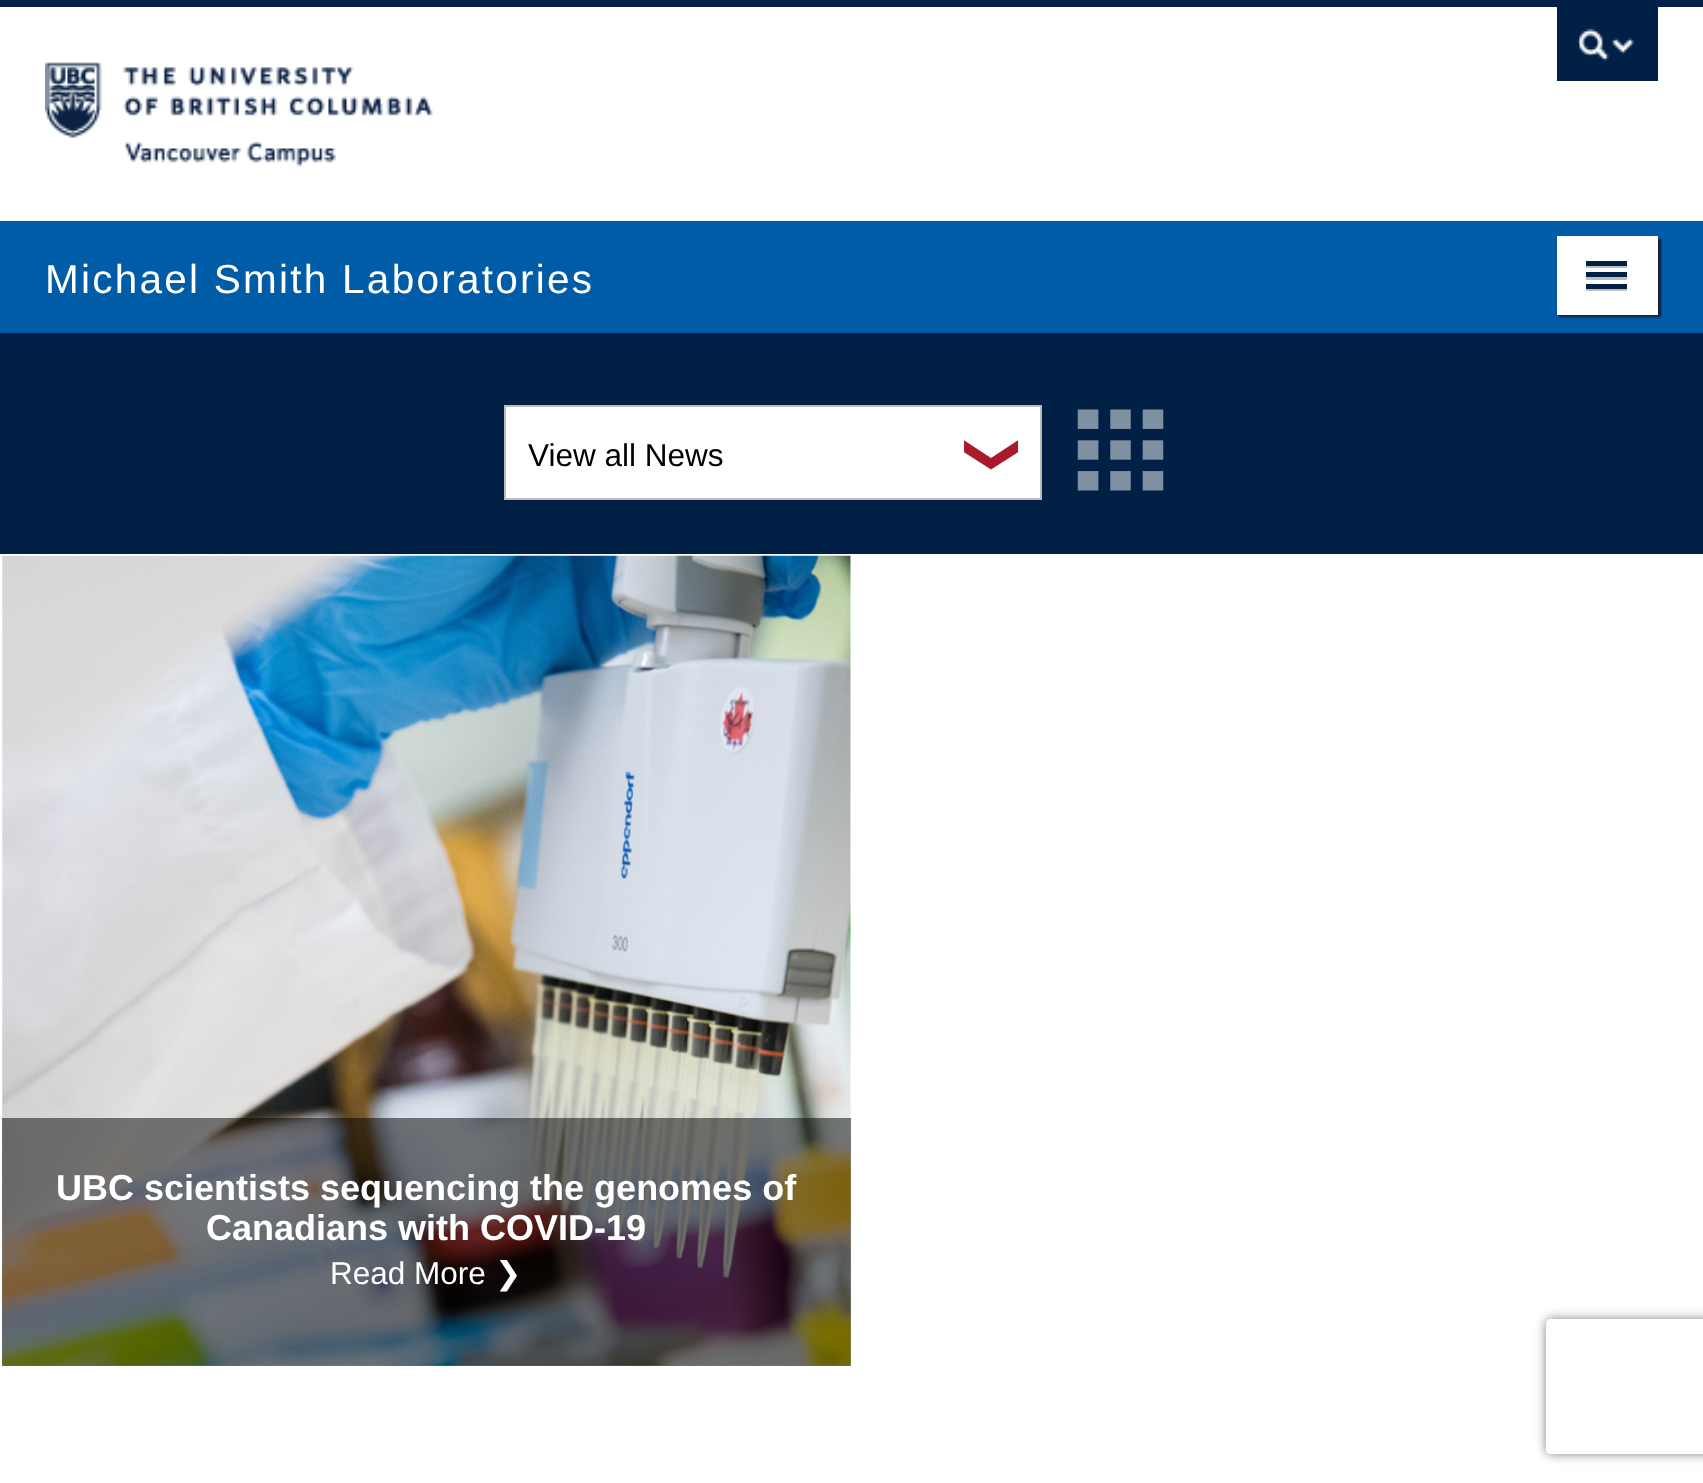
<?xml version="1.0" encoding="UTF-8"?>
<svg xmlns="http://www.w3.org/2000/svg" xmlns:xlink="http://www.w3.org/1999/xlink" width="1703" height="1483">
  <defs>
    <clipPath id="clip1"><path d="M 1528 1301 h 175 v 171 h -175 z m 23 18 h 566 c 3 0 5 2 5 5 v 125 c 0 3 -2 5 -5 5 h -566 c -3 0 -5 -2 -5 -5 v -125 c 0 -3 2 -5 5 -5 z" clip-rule="evenodd" /></clipPath>
  </defs>
  <rect width="100%" height="100%" fill="#ffffff" />
  <rect width="1703" height="7" fill="#002145" />
  <image x="45" y="62" width="388" height="76" xlink:href="image1.png" />
  <rect x="1557" y="7" width="101" height="74" fill="#002145" />
  <image x="1577" y="28" width="57" height="34" xlink:href="image2.png" />
  <image x="125" y="141" width="211" height="26" xlink:href="image3.png" />
  <rect y="221" width="1703" height="112" fill="#005ca6" />
  <rect x="1559" y="239" width="102" height="78" fill="#191938" filter="blur(1px)" />
  <rect x="1557" y="236" width="101" height="79" fill="#ffffff" />
  <path d="M 1586 263 v 5 h 41 v -5 v 3 h -41 z" fill="#bfbfbf" />
  <rect x="1586" y="261" width="41" height="5" fill="#002145" />
  <path d="M 1586 275 v 5 h 41 v -5 v 2 h -41 z" fill="#bfbfbf" />
  <rect x="1586" y="272" width="41" height="5" fill="#002145" />
  <path d="M 1586 286 v 5 h 41 v -5 v 2 h -41 z" fill="#bfbfbf" />
  <rect x="1586" y="284" width="41" height="5" fill="#002145" />
  <rect y="333" width="1703" height="221" fill="#002046" />
  <rect x="505" y="406" width="536" height="93" fill="#ffffff" stroke="#bcbcbd" stroke-width="2" />
  <image x="1077" y="409" width="87" height="82" xlink:href="image4.png" />
  <image x="2" y="555" width="849" height="811" xlink:href="image5.png" />
  <rect x="2" y="1118" width="849" height="248" fill="#000000" fill-opacity="0.5" />
  <g clip-path="url(#clip1)">
    <rect x="1546" y="1319" width="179" height="135" rx="5" fill="#808080" filter="blur(5.5px)" />
  </g>
  <text x="45" y="293" style="font-family: Liberation Sans; font-size: 40.5px; letter-spacing: 2.25px; fill: #ffffff">Michael Smith Laboratories</text>
  <text x="528" y="466" style="font-family: Liberation Sans; font-size: 31.5px; fill: #000000">View all News</text>
  <text x="977" y="432" transform="rotate(90 977 432)" style="font-family: DejaVu Sans; font-size: 54px; fill: #ab192d">❯</text>
  <text x="56" y="1200" style="font-family: Liberation Sans; font-size: 36px; font-weight: bold; fill: #ffffff">UBC scientists sequencing the genomes of</text>
  <text x="206" y="1240" style="font-family: Liberation Sans; font-size: 36px; font-weight: bold; fill: #ffffff">Canadians with COVID-19</text>
  <text x="330" y="1284" style="font-family: Liberation Sans; font-size: 31.5px; fill: #ffffff">Read More</text>
  <text x="495" y="1284" style="font-family: DejaVu Sans; font-size: 31.5px; fill: #ffffff">❯</text>
</svg>
